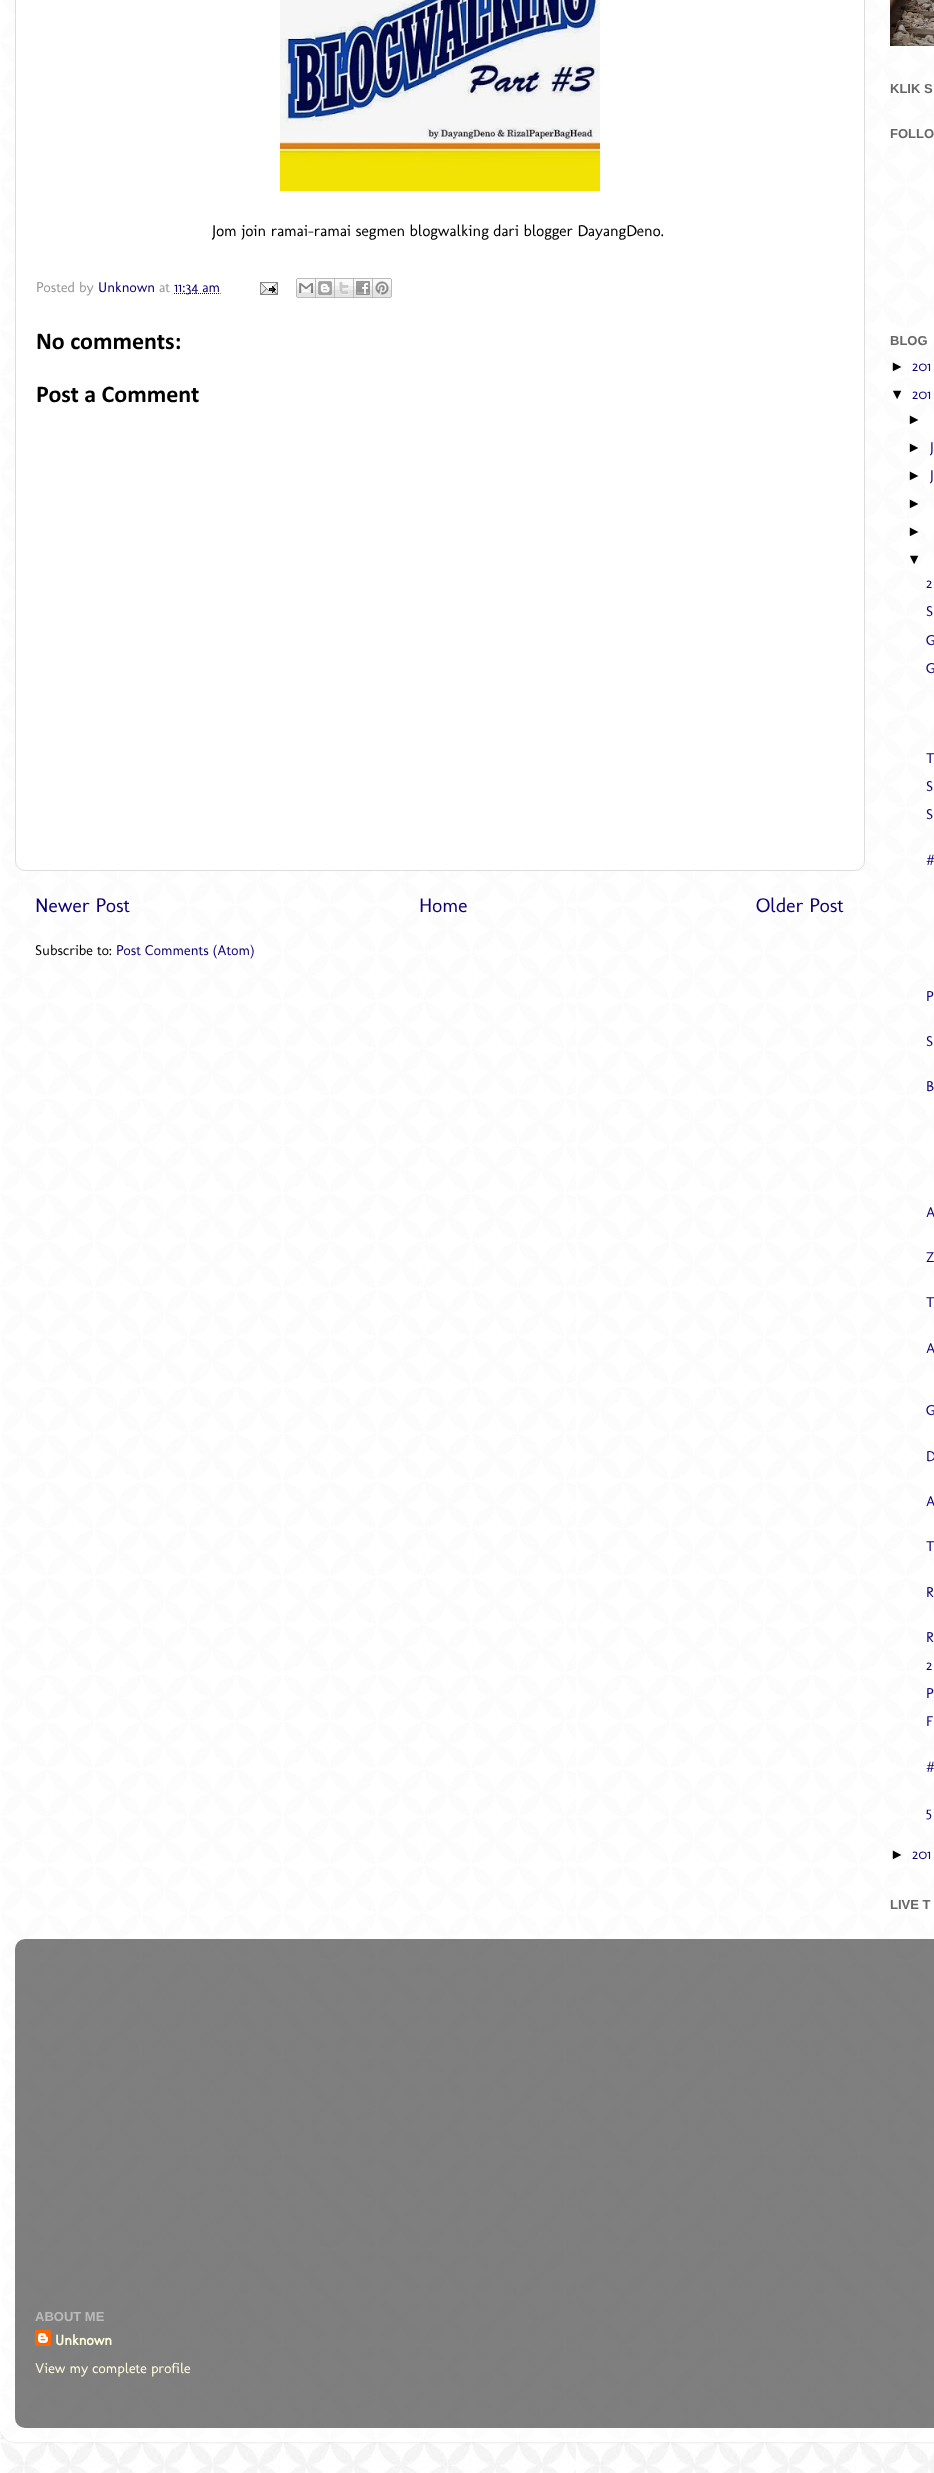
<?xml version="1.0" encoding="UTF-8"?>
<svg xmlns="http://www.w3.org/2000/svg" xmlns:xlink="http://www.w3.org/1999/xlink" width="934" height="2473">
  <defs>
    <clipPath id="clip1"><path d="M 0 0 h 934 v 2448 h -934 z m 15 -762 h 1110 c 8.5 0 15 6.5 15 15 v 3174 c 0 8.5 -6.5 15 -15 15 h -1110 c -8.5 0 -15 -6.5 -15 -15 v -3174 c 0 -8.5 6.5 -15 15 -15 z" clip-rule="evenodd" /></clipPath>
  </defs>
  <rect width="100%" height="100%" fill="#ffffff" />
  <image x="0" y="0" width="934" height="2473" xlink:href="image1.png" />
  <g clip-path="url(#clip1)">
    <rect y="-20" width="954" height="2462" rx="15" fill="#000000" fill-opacity="0.15" filter="blur(1.5px)" />
  </g>
  <image x="0" y="0" width="934" height="2441" xlink:href="image2.png" />
  <rect x="15.5" y="-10.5" width="849" height="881" rx="9.5" fill="#ffffff" stroke="#dddddd" />
  <image x="280" y="0" width="320" height="191" xlink:href="image3.png" />
  <path d="M 174 293.5 h 46.5" fill="none" stroke="#0f0077" stroke-dasharray="1 1" />
  <image x="260" y="282" width="18" height="13" xlink:href="image4.png" />
  <image x="296" y="278" width="20" height="20" xlink:href="image5.png" />
  <image x="316" y="278" width="19" height="20" xlink:href="image6.png" />
  <image x="335" y="278" width="19" height="20" xlink:href="image7.png" />
  <image x="354" y="278" width="19" height="20" xlink:href="image8.png" />
  <image x="373" y="278" width="19" height="20" xlink:href="image9.png" />
  <image x="890" y="0" width="44" height="46" xlink:href="image10.png" />
  <image x="15" y="1939" width="919" height="489" xlink:href="image11.png" />
  <image x="35" y="2330" width="16" height="16" xlink:href="image12.png" />
  <text x="212" y="236" style="font-family: Molengo; font-size: 15.85px; fill: #000000">Jom join ramai-ramai segmen blogwalking dari blogger DayangDeno.</text>
  <text x="36" y="292" style="font-family: Molengo; font-size: 14.4px; fill: #999999">Posted by</text>
  <text x="98" y="292" style="font-family: Molengo; font-size: 14.4px; fill: #0f0077">Unknown</text>
  <text x="159" y="292" style="font-family: Molengo; font-size: 14.4px; fill: #999999">at</text>
  <text x="174" y="292" style="font-family: Molengo; font-size: 14.4px; fill: #0f0077">11:34 am</text>
  <text x="36" y="349" style="font-family: Calibri; font-size: 24px; font-weight: bold; fill: #000000">No comments:</text>
  <text x="36" y="402" style="font-family: Calibri; font-size: 24px; font-weight: bold; fill: #000000">Post a Comment</text>
  <text x="35" y="912" style="font-family: Molengo; font-size: 20px; fill: #0f0077">Newer Post</text>
  <text x="419" y="912" style="font-family: Molengo; font-size: 20px; fill: #0f0077">Home</text>
  <text x="756" y="912" style="font-family: Molengo; font-size: 20px; fill: #0f0077">Older Post</text>
  <text x="35" y="955" style="font-family: Molengo; font-size: 14.4px; fill: #000000">Subscribe to:</text>
  <text x="116" y="955" style="font-family: Molengo; font-size: 14.4px; fill: #0f0077">Post Comments (Atom)</text>
  <text x="890" y="93" style="font-family: Liberation Sans; font-size: 13px; font-weight: bold; fill: #666666">KLIK S</text>
  <text x="890" y="138" style="font-family: Liberation Sans; font-size: 13px; font-weight: bold; fill: #666666">FOLLO</text>
  <text x="890" y="345" style="font-family: Liberation Sans; font-size: 13px; font-weight: bold; fill: #666666">BLOG</text>
  <text x="890" y="371" style="font-family: Liberation Sans; font-size: 14.4px; fill: #000000">►</text>
  <text x="912" y="371" style="font-family: Molengo; font-size: 14.4px; fill: #0f0077">201</text>
  <text x="890" y="399" style="font-family: Liberation Sans; font-size: 14.4px; fill: #000000">▼</text>
  <text x="912" y="399" style="font-family: Molengo; font-size: 14.4px; fill: #0f0077">201</text>
  <text x="907" y="424" style="font-family: Liberation Sans; font-size: 14.4px; fill: #000000">►</text>
  <text x="907" y="452" style="font-family: Liberation Sans; font-size: 14.4px; fill: #000000">►</text>
  <text x="930" y="452" style="font-family: Molengo; font-size: 14.4px; fill: #0f0077">J</text>
  <text x="907" y="480" style="font-family: Liberation Sans; font-size: 14.4px; fill: #000000">►</text>
  <text x="930" y="480" style="font-family: Molengo; font-size: 14.4px; fill: #0f0077">J</text>
  <text x="907" y="508" style="font-family: Liberation Sans; font-size: 14.4px; fill: #000000">►</text>
  <text x="907" y="536" style="font-family: Liberation Sans; font-size: 14.4px; fill: #000000">►</text>
  <text x="907" y="564" style="font-family: Liberation Sans; font-size: 14.4px; fill: #000000">▼</text>
  <text x="926" y="588" style="font-family: Molengo; font-size: 14.4px; fill: #0f0077">2</text>
  <text x="926" y="616" style="font-family: Molengo; font-size: 14.4px; fill: #0f0077">S</text>
  <text x="926" y="645" style="font-family: Molengo; font-size: 14.4px; fill: #0f0077">G</text>
  <text x="926" y="673" style="font-family: Molengo; font-size: 14.4px; fill: #0f0077">G</text>
  <text x="926" y="763" style="font-family: Molengo; font-size: 14.4px; fill: #0f0077">T</text>
  <text x="926" y="791" style="font-family: Molengo; font-size: 14.4px; fill: #0f0077">S</text>
  <text x="926" y="819" style="font-family: Molengo; font-size: 14.4px; fill: #0f0077">S</text>
  <text x="926" y="865" style="font-family: Molengo; font-size: 14.4px; fill: #0f0077">#</text>
  <text x="926" y="1001" style="font-family: Molengo; font-size: 14.4px; fill: #0f0077">P</text>
  <text x="926" y="1046" style="font-family: Molengo; font-size: 14.4px; fill: #0f0077">S</text>
  <text x="926" y="1091" style="font-family: Molengo; font-size: 14.4px; fill: #0f0077">B</text>
  <text x="926" y="1217" style="font-family: Molengo; font-size: 14.4px; fill: #0f0077">A</text>
  <text x="926" y="1262" style="font-family: Molengo; font-size: 14.4px; fill: #0f0077">Z</text>
  <text x="926" y="1307" style="font-family: Molengo; font-size: 14.4px; fill: #0f0077">T</text>
  <text x="926" y="1353" style="font-family: Molengo; font-size: 14.4px; fill: #0f0077">A</text>
  <text x="926" y="1415" style="font-family: Molengo; font-size: 14.4px; fill: #0f0077">G</text>
  <text x="926" y="1461" style="font-family: Molengo; font-size: 14.4px; fill: #0f0077">D</text>
  <text x="926" y="1506" style="font-family: Molengo; font-size: 14.4px; fill: #0f0077">A</text>
  <text x="926" y="1551" style="font-family: Molengo; font-size: 14.4px; fill: #0f0077">T</text>
  <text x="926" y="1597" style="font-family: Molengo; font-size: 14.4px; fill: #0f0077">R</text>
  <text x="926" y="1642" style="font-family: Molengo; font-size: 14.4px; fill: #0f0077">R</text>
  <text x="926" y="1670" style="font-family: Molengo; font-size: 14.4px; fill: #0f0077">2</text>
  <text x="926" y="1698" style="font-family: Molengo; font-size: 14.4px; fill: #0f0077">P</text>
  <text x="926" y="1726" style="font-family: Molengo; font-size: 14.4px; fill: #0f0077">F</text>
  <text x="926" y="1772" style="font-family: Molengo; font-size: 14.4px; fill: #0f0077">#</text>
  <text x="926" y="1817" style="font-family: Molengo; font-size: 14.4px; fill: #0f0077">5</text>
  <text x="890" y="1859" style="font-family: Liberation Sans; font-size: 14.4px; fill: #000000">►</text>
  <text x="912" y="1859" style="font-family: Molengo; font-size: 14.4px; fill: #0f0077">201</text>
  <text x="890" y="1909" style="font-family: Liberation Sans; font-size: 13px; font-weight: bold; fill: #666666">LIVE T</text>
  <text x="35" y="2321" style="font-family: Liberation Sans; font-size: 13px; font-weight: bold; fill: #bbbbbb">ABOUT ME</text>
  <text x="55" y="2345" style="font-family: Molengo; font-size: 14.4px; font-weight: bold; fill: #ffffdd">Unknown</text>
  <text x="35" y="2373" style="font-family: Molengo; font-size: 14.4px; fill: #ffffdd">View my complete profile</text>
</svg>
